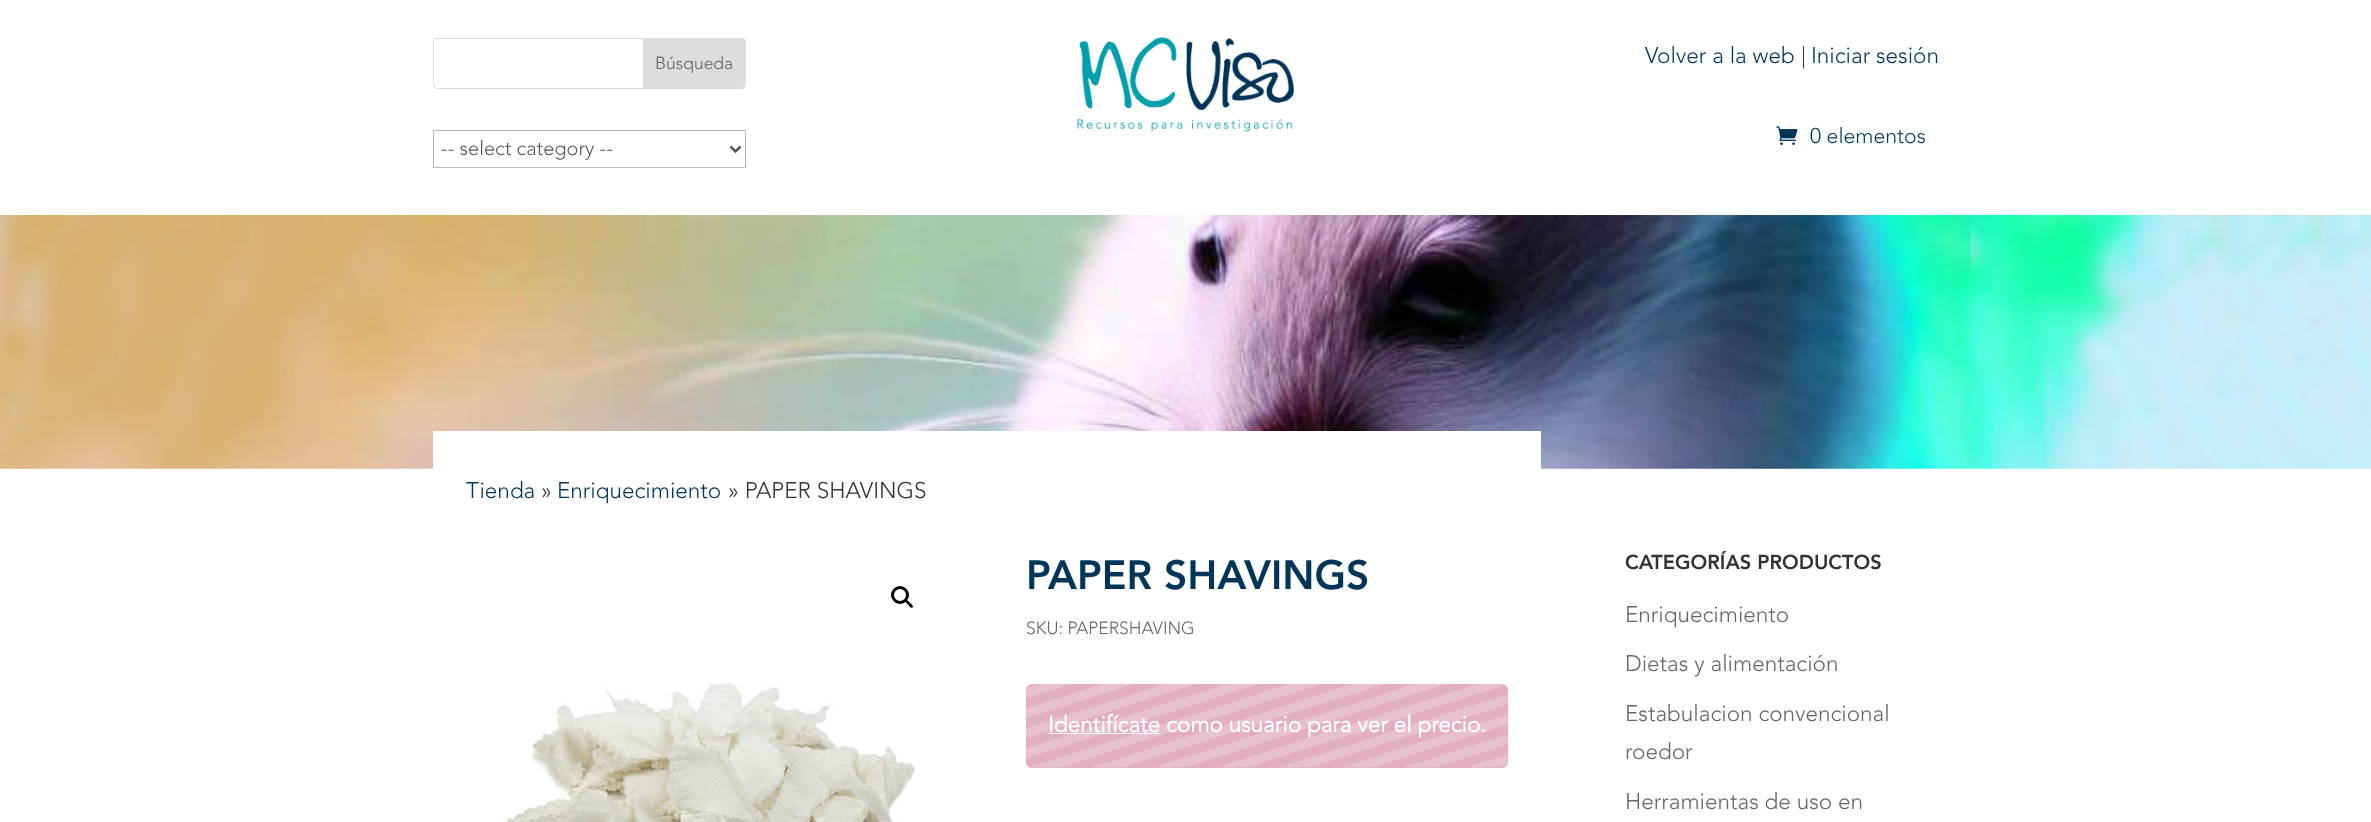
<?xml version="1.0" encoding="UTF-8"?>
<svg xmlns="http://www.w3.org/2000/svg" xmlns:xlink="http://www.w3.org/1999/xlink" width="2371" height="822">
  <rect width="100%" height="100%" fill="#ffffff" />
  <rect x="433.5" y="38.5" width="312" height="50" rx="3.5" fill="none" stroke="#dddddd" />
  <path d="M 643 39 h 99.5 c 1.5 0 2.5 1 2.5 2.5 v 44 c 0 1.5 -1 2.5 -2.5 2.5 h -99.5 z" fill="#dddddd" />
  <rect x="433.5" y="130.5" width="312" height="37" fill="none" stroke="#bbbbbb" />
  <path d="M 730.5 146.5 l 5 5 l 5 -5" fill="none" stroke="#575757" stroke-width="2.5" />
  <image x="1077" y="37" width="217" height="95" xlink:href="image1.png" />
  <image x="1776" y="126" width="22" height="19" xlink:href="image2.png" />
  <image x="0" y="215" width="2371" height="254" xlink:href="image3.png" />
  <rect x="433" y="431" width="1108" height="38" fill="#ffffff" />
  <circle cx="900" cy="595" r="7.5" fill="none" stroke="#000000" stroke-width="3" />
  <path d="M 905.5 600.5 c 1.5 -1.5 3.5 1.5 4.5 2.5 c 1 0.5 4 3 2.5 4.5 c -1.5 1.5 -3.5 -2 -4.5 -3 c -0.5 -0.5 -4 -3 -2.5 -4 z" fill="#000000" />
  <image x="502" y="682" width="413" height="140" xlink:href="image4.png" />
  <rect x="1026" y="684" width="482" height="84" rx="6" fill="#e3afbf" />
  <image x="1026" y="684" width="482" height="84" xlink:href="image5.png" />
  <rect x="1048" y="733" width="112" height="1" fill="#ffffff" />
  <text x="655" y="69" style="font-family: Avenir; font-size: 17.5px; font-weight: 300; fill: #666666">Búsqueda</text>
  <text x="441" y="155" style="font-family: Avenir; font-size: 20px; font-weight: 300; fill: #575757">-- select category --</text>
  <text x="1645" y="63" style="font-family: Avenir; font-size: 22.5px; font-weight: 300; fill: #003557">Volver a la web</text>
  <text x="1801" y="63" style="font-family: Avenir; font-size: 22.5px; font-weight: 300; fill: #333333">|</text>
  <text x="1811" y="63" style="font-family: Avenir; font-size: 22.5px; font-weight: 300; fill: #003557">Iniciar sesión</text>
  <text x="1810" y="143" style="font-family: Avenir; font-size: 21.25px; font-weight: 300; fill: #003557">0 elementos</text>
  <text x="466" y="498" style="font-family: Avenir; font-size: 22.5px; font-weight: 300; fill: #003557">Tienda</text>
  <text x="541" y="498" style="font-family: Avenir; font-size: 22.5px; font-weight: 300; fill: #333333">»</text>
  <text x="557" y="498" style="font-family: Avenir; font-size: 22.5px; font-weight: 300; fill: #003557">Enriquecimiento</text>
  <text x="728" y="498" style="font-family: Avenir; font-size: 22.5px; font-weight: 300; fill: #333333">» PAPER SHAVINGS</text>
  <text x="1026" y="589" style="font-family: Avenir; font-size: 40.5px; font-weight: 900; fill: #003557">PAPER SHAVINGS</text>
  <text x="1026" y="634" style="font-family: Avenir; font-size: 17.5px; font-weight: 300; fill: #666666">SKU: PAPERSHAVING</text>
  <text x="1048" y="732" style="font-family: Avenir; font-size: 22.5px; font-weight: bold; fill: #ffffff">Identifícate como usuario para ver el precio.</text>
  <text x="1625" y="569" style="font-family: Avenir; font-size: 20px; font-weight: 900; fill: #333333">CATEGORÍAS PRODUCTOS</text>
  <text x="1625" y="622" style="font-family: Avenir; font-size: 22.5px; font-weight: 300; fill: #666666">Enriquecimiento</text>
  <text x="1625" y="671" style="font-family: Avenir; font-size: 22.5px; font-weight: 300; fill: #666666">Dietas y alimentación</text>
  <text x="1625" y="721" style="font-family: Avenir; font-size: 22.5px; font-weight: 300; fill: #666666">Estabulacion convencional</text>
  <text x="1625" y="759" style="font-family: Avenir; font-size: 22.5px; font-weight: 300; fill: #666666">roedor</text>
  <text x="1625" y="809" style="font-family: Avenir; font-size: 22.5px; font-weight: 300; fill: #666666">Herramientas de uso en</text>
</svg>
